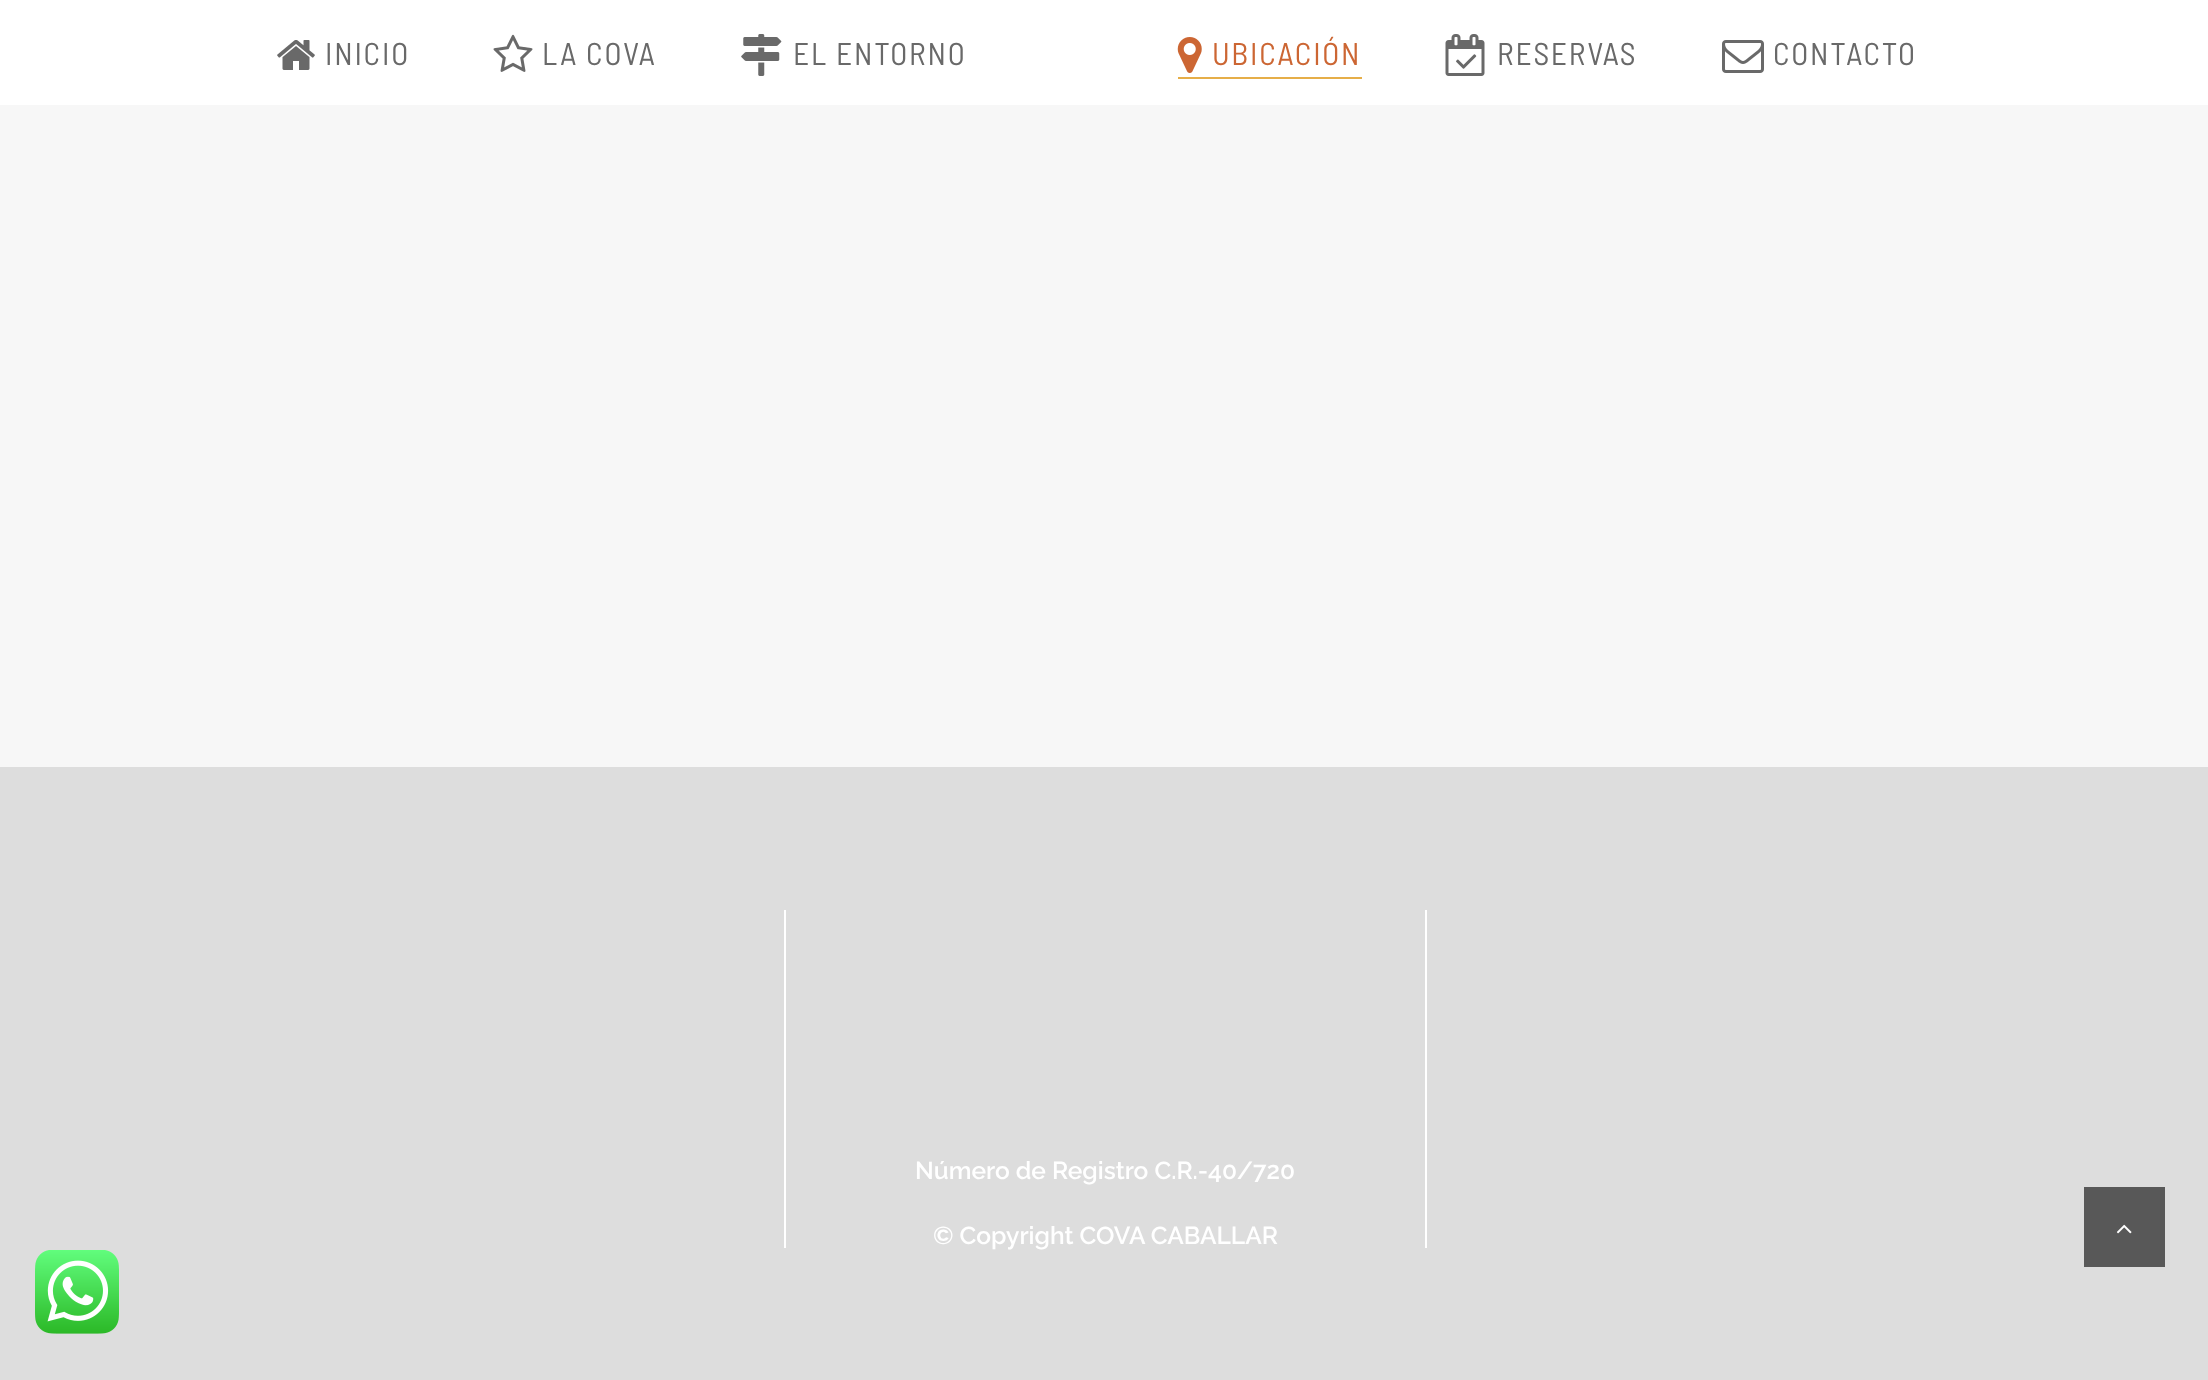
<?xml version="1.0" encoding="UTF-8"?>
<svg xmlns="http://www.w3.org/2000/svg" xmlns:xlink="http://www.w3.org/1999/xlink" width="2208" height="1380">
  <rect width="100%" height="100%" fill="#f7f7f7" />
  <rect width="2208" height="105" fill="#ffffff" />
  <image x="277" y="40" width="38" height="30" xlink:href="image1.png" />
  <image x="493" y="34" width="40" height="38" xlink:href="image2.png" />
  <image x="741" y="34" width="41" height="42" xlink:href="image3.png" />
  <image x="1177" y="37" width="25" height="36" xlink:href="image4.png" />
  <rect x="1178" y="77" width="184" height="2" fill="#e6ae48" />
  <image x="1445" y="34" width="40" height="42" xlink:href="image5.png" />
  <image x="1722" y="40" width="42" height="33" xlink:href="image6.png" />
  <rect y="767" width="2208" height="613" fill="#dddddd" />
  <rect x="784" y="910" width="2" height="338" fill="#ffffff" />
  <rect x="1425" y="910" width="2" height="338" fill="#ffffff" />
  <rect x="2084" y="1187" width="81" height="80" fill="#585858" />
  <image x="2116" y="1224" width="16" height="10" xlink:href="image7.png" />
  <image x="35" y="1250" width="84" height="84" xlink:href="image8.png" />
  <text x="325" y="65" style="font-family: Barlow Semi Condensed; font-size: 31.5px; letter-spacing: 1.75px; fill: #696969">INICIO</text>
  <text x="542" y="65" style="font-family: Barlow Semi Condensed; font-size: 31.5px; letter-spacing: 1.75px; fill: #696969">LA COVA</text>
  <text x="793" y="65" style="font-family: Barlow Semi Condensed; font-size: 31.5px; letter-spacing: 1.75px; fill: #696969">EL ENTORNO</text>
  <text x="1212" y="65" style="font-family: Barlow Semi Condensed; font-size: 31.5px; letter-spacing: 1.75px; fill: #cc6633">UBICACIÓN</text>
  <text x="1497" y="65" style="font-family: Barlow Semi Condensed; font-size: 31.5px; letter-spacing: 1.75px; fill: #696969">RESERVAS</text>
  <text x="1773" y="65" style="font-family: Barlow Semi Condensed; font-size: 31.5px; letter-spacing: 1.75px; fill: #696969">CONTACTO</text>
  <text x="915" y="1179" style="font-family: Raleway; font-size: 24.5px; font-weight: 600; fill: #ffffff">Número de Registro C.R.-40/720</text>
  <text x="933" y="1244" style="font-family: Raleway; font-size: 24.5px; font-weight: 600; fill: #ffffff">© Copyright COVA CABALLAR</text>
</svg>
